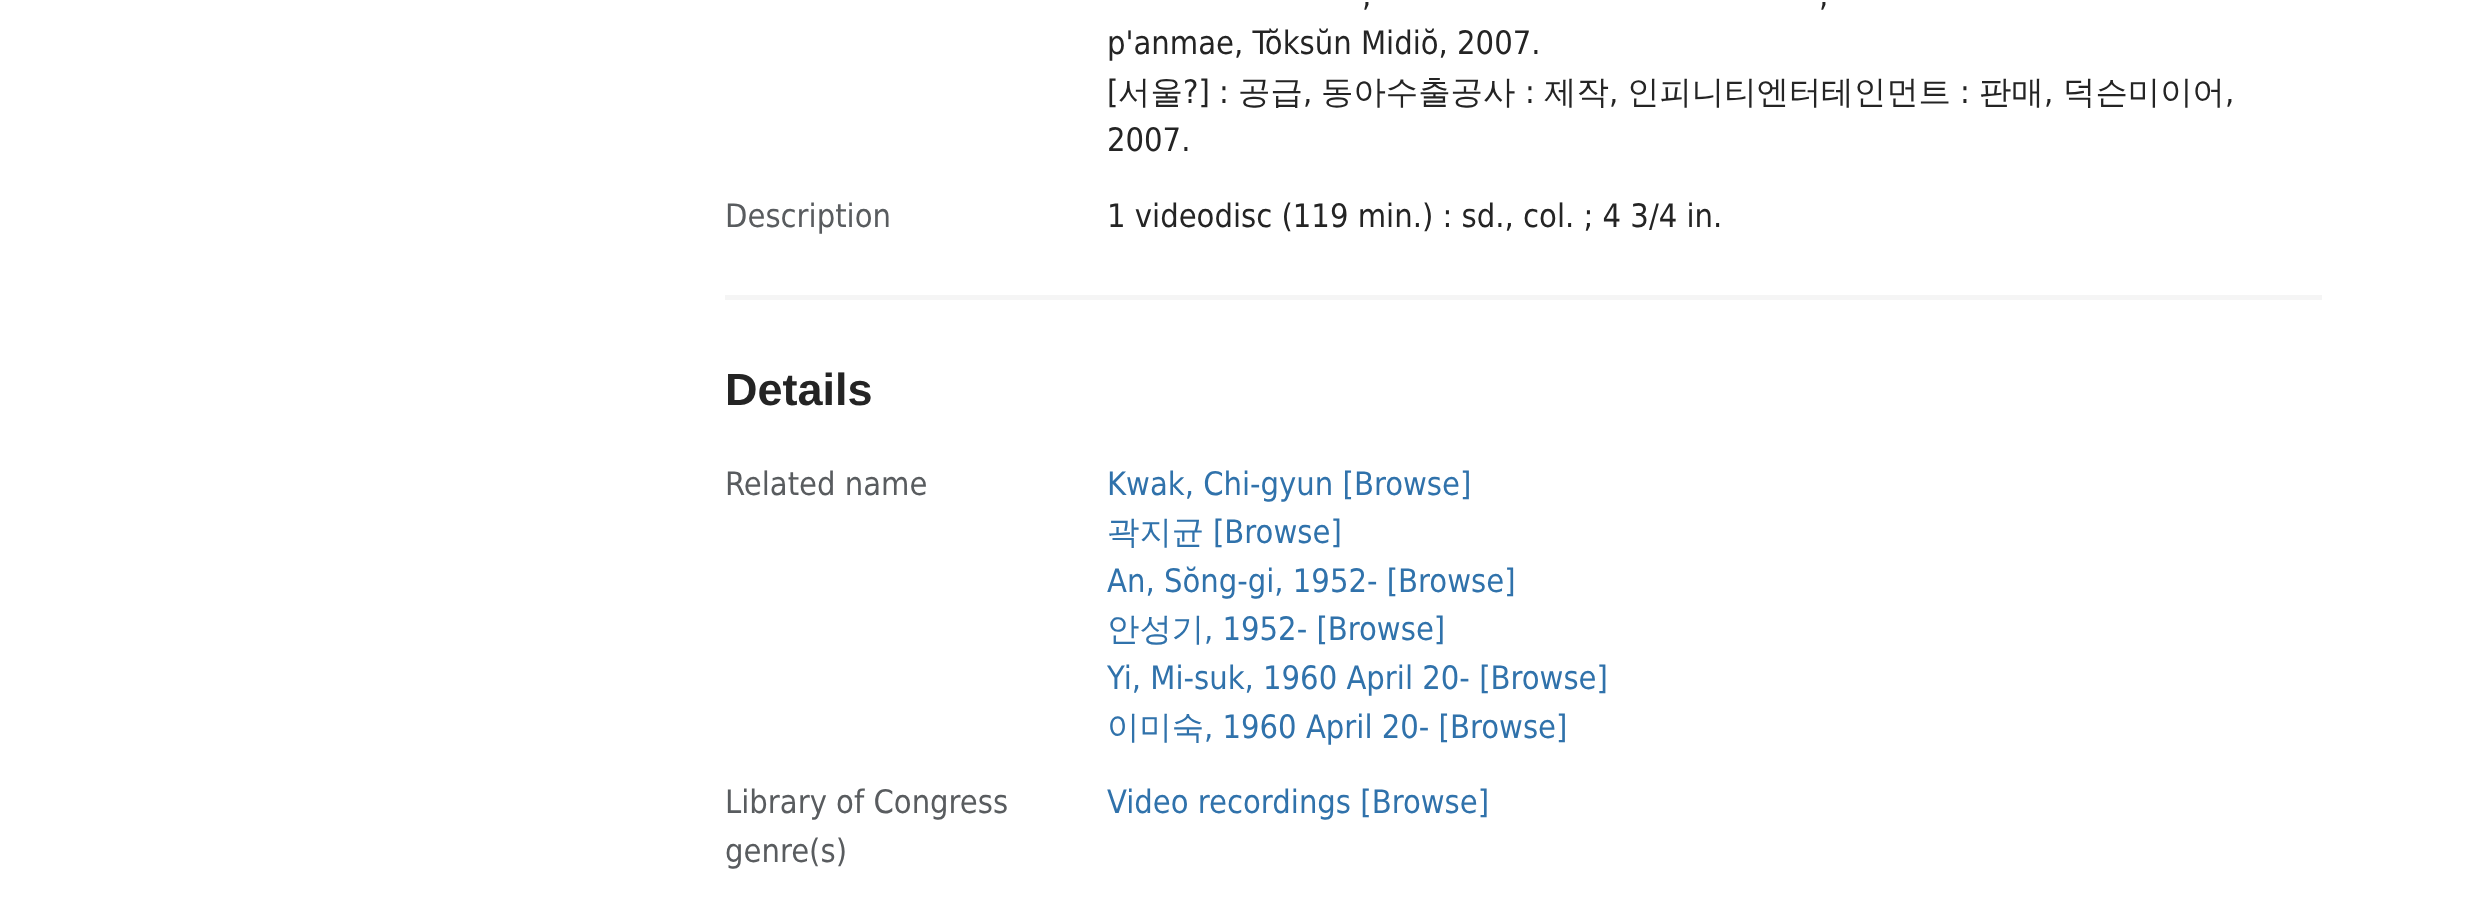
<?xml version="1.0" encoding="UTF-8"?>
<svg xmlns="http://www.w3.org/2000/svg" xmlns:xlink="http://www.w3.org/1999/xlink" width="2466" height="907">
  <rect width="100%" height="100%" fill="#ffffff" />
  <rect x="725" y="295" width="1597" height="5" fill="#f5f5f5" />
  <text x="1362" y="6" style="font-family: DejaVu Sans; font-size: 32.4px; fill: #242424">,</text>
  <text x="1819" y="6" style="font-family: DejaVu Sans; font-size: 32.4px; fill: #242424">,</text>
  <text x="1107" y="54" style="font-family: DejaVu Sans; font-size: 32.4px; fill: #242424">p'anmae, Tŏksŭn Midiŏ, 2007.</text>
  <text x="1107" y="103" style="font-family: DejaVu Sans; font-size: 32.4px; fill: #242424">[</text>
  <text x="1118" y="103" style="font-family: WenQuanYi Zen Hei; font-size: 32.4px; font-weight: 500; fill: #242424">서울</text>
  <text x="1183" y="103" style="font-family: DejaVu Sans; font-size: 32.4px; fill: #242424">?] :</text>
  <text x="1238" y="103" style="font-family: WenQuanYi Zen Hei; font-size: 32.4px; font-weight: 500; fill: #242424">공급</text>
  <text x="1303" y="103" style="font-family: DejaVu Sans; font-size: 32.4px; fill: #242424">,</text>
  <text x="1321" y="103" style="font-family: WenQuanYi Zen Hei; font-size: 32.4px; font-weight: 500; fill: #242424">동아수출공사</text>
  <text x="1525" y="103" style="font-family: DejaVu Sans; font-size: 32.4px; fill: #242424">:</text>
  <text x="1544" y="103" style="font-family: WenQuanYi Zen Hei; font-size: 32.4px; font-weight: 500; fill: #242424">제작</text>
  <text x="1609" y="103" style="font-family: DejaVu Sans; font-size: 32.4px; fill: #242424">,</text>
  <text x="1627" y="103" style="font-family: WenQuanYi Zen Hei; font-size: 32.4px; font-weight: 500; fill: #242424">인피니티엔터테인먼트</text>
  <text x="1960" y="103" style="font-family: DejaVu Sans; font-size: 32.4px; fill: #242424">:</text>
  <text x="1979" y="103" style="font-family: WenQuanYi Zen Hei; font-size: 32.4px; font-weight: 500; fill: #242424">판매</text>
  <text x="2044" y="103" style="font-family: DejaVu Sans; font-size: 32.4px; fill: #242424">,</text>
  <text x="2063" y="103" style="font-family: WenQuanYi Zen Hei; font-size: 32.4px; font-weight: 500; fill: #242424">덕슨미이어</text>
  <text x="2225" y="103" style="font-family: DejaVu Sans; font-size: 32.4px; fill: #242424">,</text>
  <text x="1107" y="151" style="font-family: DejaVu Sans; font-size: 32.4px; fill: #242424">2007.</text>
  <text x="725" y="227" style="font-family: DejaVu Sans; font-size: 32.4px; fill: #595c5f">Description</text>
  <text x="1107" y="227" style="font-family: DejaVu Sans; font-size: 32.4px; fill: #242424">1 videodisc (119 min.) : sd., col. ; 4 3/4 in.</text>
  <text x="725" y="405" style="font-family: Liberation Sans; font-size: 45px; font-weight: bold; fill: #242424">Details</text>
  <text x="725" y="495" style="font-family: DejaVu Sans; font-size: 32.4px; fill: #595c5f">Related name</text>
  <text x="1107" y="495" style="font-family: DejaVu Sans; font-size: 32.4px; fill: #3072ab">Kwak, Chi-gyun [Browse]</text>
  <text x="1107" y="543" style="font-family: WenQuanYi Zen Hei; font-size: 32.4px; font-weight: 500; fill: #3072ab">곽지균</text>
  <text x="1213" y="543" style="font-family: DejaVu Sans; font-size: 32.4px; fill: #3072ab">[Browse]</text>
  <text x="1107" y="592" style="font-family: DejaVu Sans; font-size: 32.4px; fill: #3072ab">An, Sŏng-gi, 1952- [Browse]</text>
  <text x="1107" y="640" style="font-family: WenQuanYi Zen Hei; font-size: 32.4px; font-weight: 500; fill: #3072ab">안성기</text>
  <text x="1204" y="640" style="font-family: DejaVu Sans; font-size: 32.4px; fill: #3072ab">, 1952- [Browse]</text>
  <text x="1107" y="689" style="font-family: DejaVu Sans; font-size: 32.4px; fill: #3072ab">Yi, Mi-suk, 1960 April 20- [Browse]</text>
  <text x="1107" y="738" style="font-family: WenQuanYi Zen Hei; font-size: 32.4px; font-weight: 500; fill: #3072ab">이미숙</text>
  <text x="1204" y="738" style="font-family: DejaVu Sans; font-size: 32.4px; fill: #3072ab">, 1960 April 20- [Browse]</text>
  <text x="725" y="813" style="font-family: DejaVu Sans; font-size: 32.4px; fill: #595c5f">Library of Congress</text>
  <text x="725" y="862" style="font-family: DejaVu Sans; font-size: 32.4px; fill: #595c5f">genre(s)</text>
  <text x="1107" y="813" style="font-family: DejaVu Sans; font-size: 32.4px; fill: #3072ab">Video recordings [Browse]</text>
</svg>
